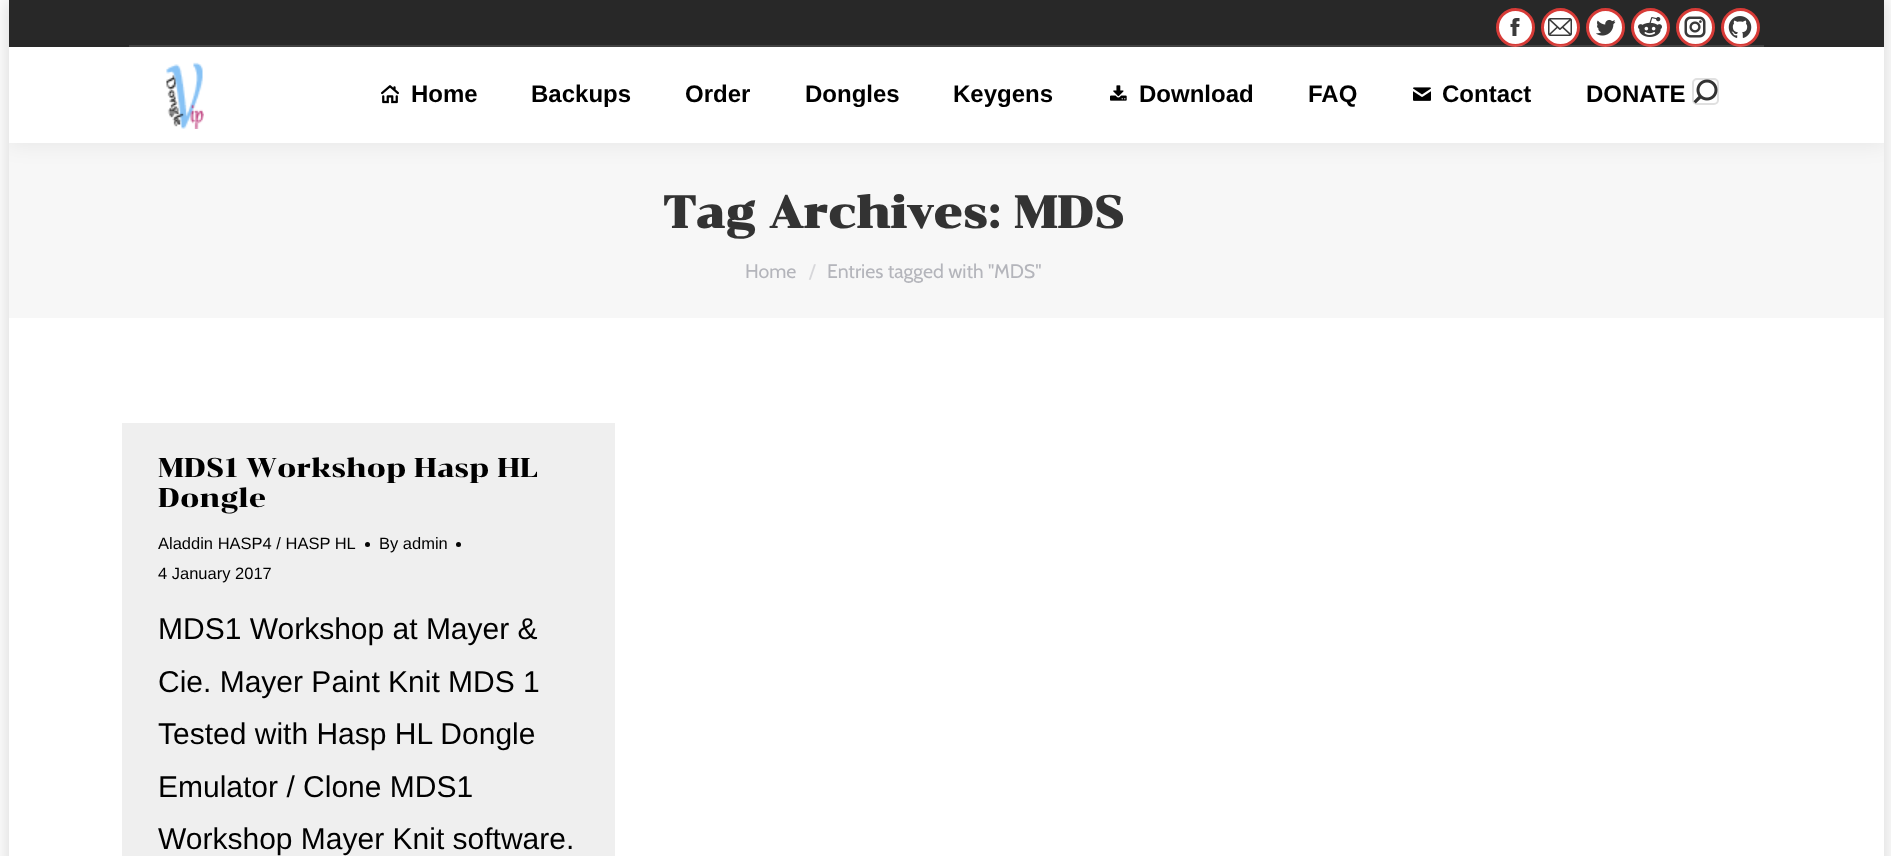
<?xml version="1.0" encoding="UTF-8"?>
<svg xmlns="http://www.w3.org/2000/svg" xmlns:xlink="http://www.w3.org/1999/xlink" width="1891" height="856">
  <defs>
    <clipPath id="clip1"><rect x="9" y="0" width="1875" height="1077" /></clipPath>
  </defs>
  <rect width="100%" height="100%" fill="#fcfcfc" />
  <rect x="9" width="1875" height="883" fill="#000000" fill-opacity="0.15" filter="blur(9px)" />
  <rect x="9" y="318" width="1875" height="538" fill="#ffffff" />
  <rect x="9" y="143" width="1875" height="175" fill="#f7f7f7" />
  <g clip-path="url(#clip1)">
    <rect x="8" y="-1" width="1878" height="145" fill="#000000" fill-opacity="0.07" filter="blur(11px)" />
  </g>
  <rect x="9" y="47" width="1875" height="96" fill="#ffffff" />
  <rect x="9" width="1875" height="47" fill="#282828" />
  <circle cx="1515.5" cy="27.5" r="18" fill="#ffffff" stroke="#d73b37" stroke-width="3" />
  <image x="1510" y="18" width="10" height="18" xlink:href="image1.png" />
  <circle cx="1560.5" cy="27.5" r="18" fill="#ffffff" stroke="#d73b37" stroke-width="3" />
  <image x="1548" y="18" width="24" height="18" xlink:href="image2.png" />
  <circle cx="1605.5" cy="27.5" r="18" fill="#ffffff" stroke="#d73b37" stroke-width="3" />
  <image x="1596" y="19" width="20" height="17" xlink:href="image3.png" />
  <circle cx="1650.5" cy="27.5" r="18" fill="#ffffff" stroke="#d73b37" stroke-width="3" />
  <image x="1638" y="17" width="24" height="20" xlink:href="image4.png" />
  <circle cx="1695.5" cy="27.5" r="18" fill="#ffffff" stroke="#d73b37" stroke-width="3" />
  <image x="1684" y="16" width="22" height="22" xlink:href="image5.png" />
  <circle cx="1740.5" cy="27.5" r="18" fill="#ffffff" stroke="#d73b37" stroke-width="3" />
  <image x="1728" y="16" width="24" height="22" xlink:href="image6.png" />
  <rect x="129" y="45" width="1635" height="2" fill="#ffffff" fill-opacity="0.12" />
  <image x="166" y="62" width="38" height="67" xlink:href="image7.png" />
  <image x="381" y="85" width="18" height="19" xlink:href="image8.png" />
  <image x="1110" y="85" width="17" height="16" xlink:href="image9.png" />
  <image x="1413" y="87" width="18" height="14" xlink:href="image10.png" />
  <rect x="1693" y="79" width="25" height="25" rx="4" fill="none" stroke="#e0e0e0" stroke-width="2" />
  <image x="1693" y="79" width="25" height="25" xlink:href="image11.png" />
  <rect x="122" y="423" width="493" height="433" fill="#efefef" />
  <circle cx="367.5" cy="544.5" r="2.5" fill="#050505" />
  <circle cx="458.5" cy="544.5" r="2.5" fill="#050505" />
  <text x="411" y="102" style="font-family: Liberation Sans; font-size: 24px; font-weight: bold; fill: #000000">Home</text>
  <text x="531" y="102" style="font-family: Liberation Sans; font-size: 24px; font-weight: bold; fill: #000000">Backups</text>
  <text x="685" y="102" style="font-family: Liberation Sans; font-size: 24px; font-weight: bold; fill: #000000">Order</text>
  <text x="805" y="102" style="font-family: Liberation Sans; font-size: 24px; font-weight: bold; fill: #000000">Dongles</text>
  <text x="953" y="102" style="font-family: Liberation Sans; font-size: 24px; font-weight: bold; fill: #000000">Keygens</text>
  <text x="1139" y="102" style="font-family: Liberation Sans; font-size: 24px; font-weight: bold; fill: #000000">Download</text>
  <text x="1308" y="102" style="font-family: Liberation Sans; font-size: 24px; font-weight: bold; fill: #000000">FAQ</text>
  <text x="1442" y="102" style="font-family: Liberation Sans; font-size: 24px; font-weight: bold; fill: #000000">Contact</text>
  <text x="1586" y="102" style="font-family: Liberation Sans; font-size: 24px; font-weight: bold; fill: #000000">DONATE</text>
  <text x="663" y="228" style="font-family: Chonburi; font-size: 45px; font-weight: bold; fill: #333333">Tag Archives: MDS</text>
  <text x="745" y="278" style="font-family: Cabin; font-size: 19.5px; fill: #b4b5bb">Home</text>
  <text x="809" y="278" style="font-family: Cabin; font-size: 19.5px; fill: #d7d7da">/</text>
  <text x="827" y="278" style="font-family: Cabin; font-size: 19.5px; fill: #b4b5bb">Entries tagged with "MDS"</text>
  <text x="158" y="477" style="font-family: Chonburi; font-size: 27px; fill: #000000">MDS1 Workshop Hasp HL</text>
  <text x="158" y="507" style="font-family: Chonburi; font-size: 27px; fill: #000000">Dongle</text>
  <text x="158" y="549" style="font-family: Liberation Sans; font-size: 16.5px; fill: #000000">Aladdin HASP4 / HASP HL</text>
  <text x="379" y="549" style="font-family: Liberation Sans; font-size: 16.5px; fill: #000000">By admin</text>
  <text x="158" y="579" style="font-family: Liberation Sans; font-size: 16.5px; fill: #000000">4 January 2017</text>
  <text x="158" y="639" style="font-family: Liberation Sans; font-size: 30px; fill: #000000">MDS1 Workshop at Mayer &amp;</text>
  <text x="158" y="692" style="font-family: Liberation Sans; font-size: 30px; fill: #000000">Cie. Mayer Paint Knit MDS 1</text>
  <text x="158" y="744" style="font-family: Liberation Sans; font-size: 30px; fill: #000000">Tested with Hasp HL Dongle</text>
  <text x="158" y="797" style="font-family: Liberation Sans; font-size: 30px; fill: #000000">Emulator / Clone MDS1</text>
  <text x="158" y="849" style="font-family: Liberation Sans; font-size: 30px; fill: #000000">Workshop Mayer Knit software.</text>
</svg>
